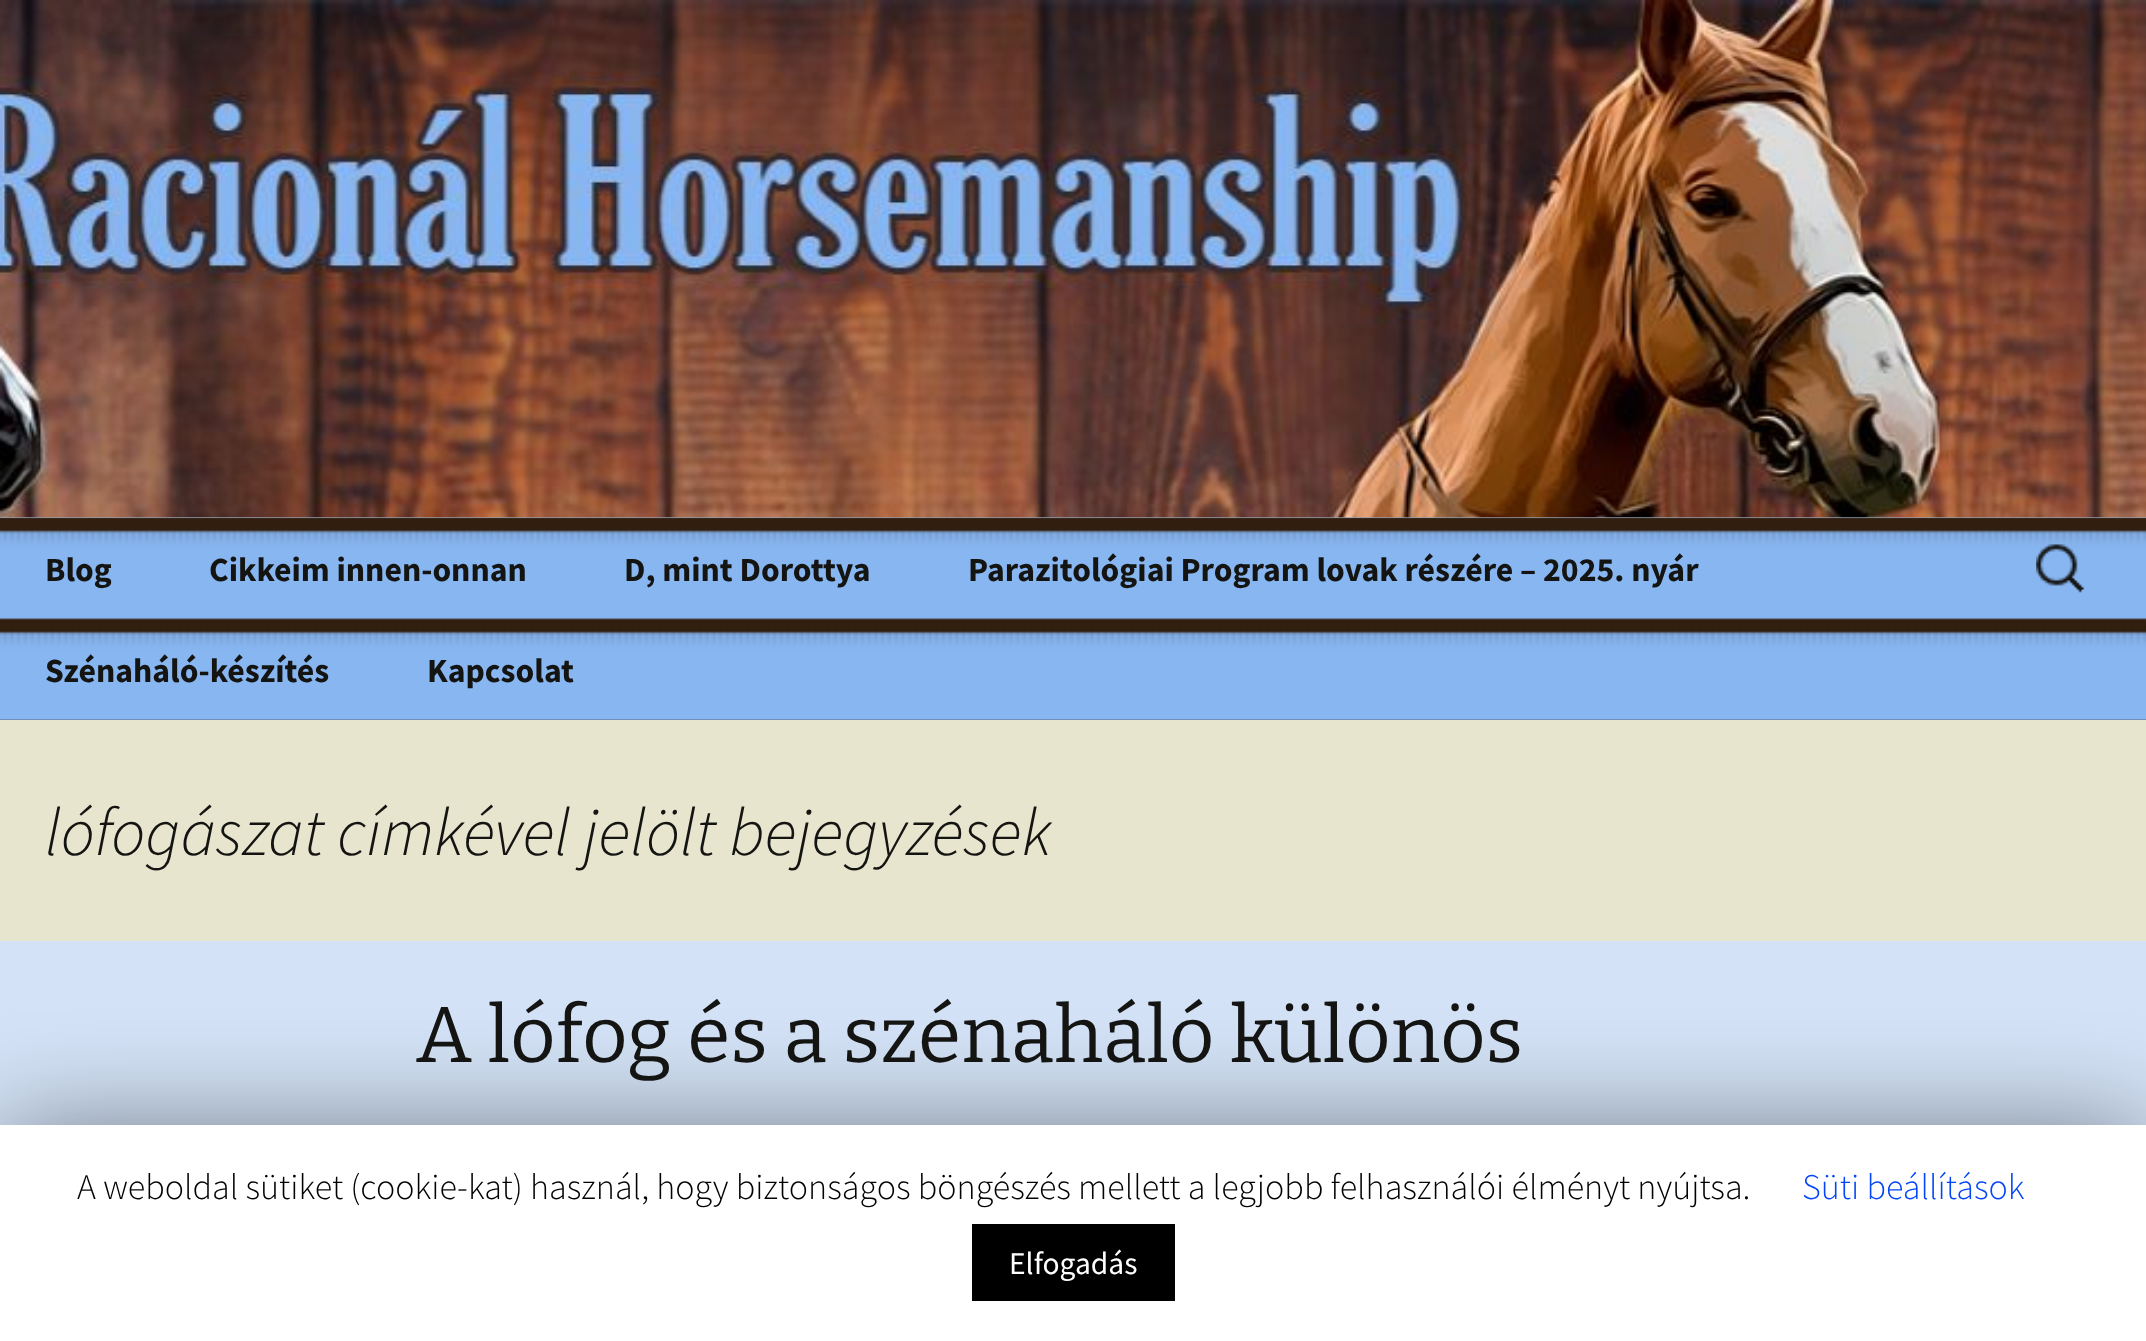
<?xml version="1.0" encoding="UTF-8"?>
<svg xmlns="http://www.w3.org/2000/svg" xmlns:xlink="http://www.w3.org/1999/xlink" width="2146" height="1341">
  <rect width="100%" height="100%" fill="#ffffff" />
  <image x="0" y="0" width="2146" height="518" xlink:href="image1.png" />
  <image x="0" y="517" width="2146" height="203" xlink:href="image2.png" />
  <image x="2036" y="544" width="49" height="49" xlink:href="image3.png" />
  <rect y="941" width="2146" height="184" fill="#d3e2f6" />
  <rect y="720" width="2146" height="221" fill="#e8e5ce" />
  <rect y="1136" width="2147" height="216" fill="#000000" fill-opacity="0.5" filter="blur(56px)" />
  <rect y="1125" width="2146" height="216" fill="#ffffff" />
  <rect x="972" y="1224" width="203" height="77" fill="#000000" />
  <text x="45" y="581" style="font-family: Source Sans Pro; font-size: 33.75px; font-weight: bold; fill: #141412">Blog</text>
  <text x="209" y="581" style="font-family: Source Sans Pro; font-size: 33.75px; font-weight: bold; fill: #141412">Cikkeim innen-onnan</text>
  <text x="624" y="581" style="font-family: Source Sans Pro; font-size: 33.75px; font-weight: bold; fill: #141412">D, mint Dorottya</text>
  <text x="968" y="581" style="font-family: Source Sans Pro; font-size: 33.75px; font-weight: bold; fill: #141412">Parazitológiai Program lovak részére – 2025. nyár</text>
  <text x="45" y="682" style="font-family: Source Sans Pro; font-size: 33.75px; font-weight: bold; fill: #141412">Szénaháló-készítés</text>
  <text x="427" y="682" style="font-family: Source Sans Pro; font-size: 33.75px; font-weight: bold; fill: #141412">Kapcsolat</text>
  <text x="45" y="855" style="font-family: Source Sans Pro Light; font-size: 67.5px; font-weight: 300; font-style: italic; fill: #141412">lófogászat címkével jelölt bejegyzések</text>
  <text x="416" y="1062" style="font-family: Bitter; font-size: 78.75px; fill: #141412">A lófog és a szénaháló különös</text>
  <text x="77" y="1199" style="font-family: Source Sans Pro Light; font-size: 36px; font-weight: 300; fill: #000000">A weboldal sütiket (cookie-kat) használ, hogy biztonságos böngészés mellett a legjobb felhasználói élményt nyújtsa.</text>
  <text x="1802" y="1199" style="font-family: Source Sans Pro Light; font-size: 36px; font-weight: 300; fill: #0445f7">Süti beállítások</text>
  <text x="1009" y="1274" style="font-family: Source Sans Pro; font-size: 31.5px; fill: #ffffff">Elfogadás</text>
</svg>
